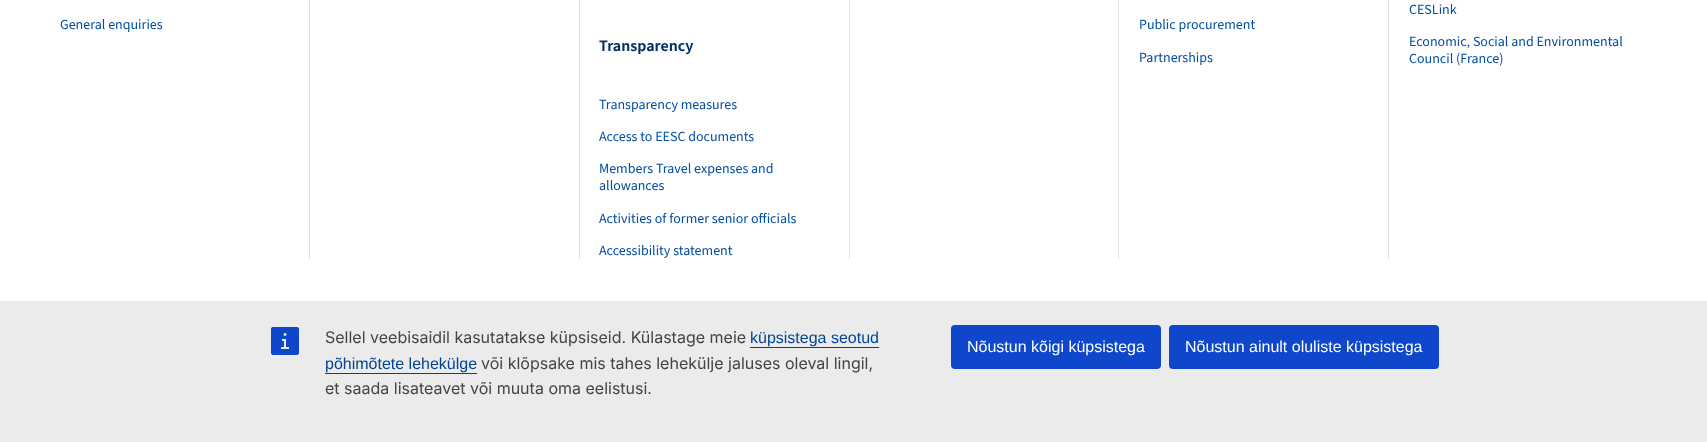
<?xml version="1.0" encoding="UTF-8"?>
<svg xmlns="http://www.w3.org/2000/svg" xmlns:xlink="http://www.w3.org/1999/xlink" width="1707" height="442">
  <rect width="100%" height="100%" fill="#ffffff" />
  <rect x="309" width="1" height="259" fill="#e0e0e0" />
  <rect x="579" width="1" height="259" fill="#e0e0e0" />
  <rect x="849" width="1" height="259" fill="#e0e0e0" />
  <rect x="1118" width="1" height="259" fill="#e0e0e0" />
  <rect x="1388" width="1" height="259" fill="#e0e0e0" />
  <rect y="301" width="1707" height="141" fill="#ebebeb" />
  <image x="271" y="327" width="28" height="28" xlink:href="image1.png" />
  <rect x="750" y="347" width="129" height="1" fill="#004494" />
  <rect x="325" y="373" width="152" height="1" fill="#004494" />
  <rect x="951" y="325" width="210" height="44" rx="4" fill="#0e47cb" />
  <rect x="1169" y="325" width="270" height="44" rx="4" fill="#0e47cb" />
  <text x="60" y="29" style="font-family: 'Source Sans 3'; font-size: 14px; fill: #034ea2">General enquiries</text>
  <text x="599" y="51" style="font-family: 'Source Sans 3'; font-size: 16px; font-weight: 600; fill: #023267">Transparency</text>
  <text x="599" y="109" style="font-family: 'Source Sans 3'; font-size: 14px; fill: #034ea2">Transparency measures</text>
  <text x="599" y="141" style="font-family: 'Source Sans 3'; font-size: 14px; fill: #034ea2">Access to EESC documents</text>
  <text x="599" y="173" style="font-family: 'Source Sans 3'; font-size: 14px; fill: #034ea2">Members Travel expenses and</text>
  <text x="599" y="190" style="font-family: 'Source Sans 3'; font-size: 14px; fill: #034ea2">allowances</text>
  <text x="599" y="223" style="font-family: 'Source Sans 3'; font-size: 14px; fill: #034ea2">Activities of former senior officials</text>
  <text x="599" y="255" style="font-family: 'Source Sans 3'; font-size: 14px; fill: #034ea2">Accessibility statement</text>
  <text x="1139" y="29" style="font-family: 'Source Sans 3'; font-size: 14px; fill: #034ea2">Public procurement</text>
  <text x="1139" y="62" style="font-family: 'Source Sans 3'; font-size: 14px; fill: #034ea2">Partnerships</text>
  <text x="1409" y="14" style="font-family: 'Source Sans 3'; font-size: 14px; fill: #034ea2">CESLink</text>
  <text x="1409" y="46" style="font-family: 'Source Sans 3'; font-size: 14px; fill: #034ea2">Economic, Social and Environmental</text>
  <text x="1409" y="63" style="font-family: 'Source Sans 3'; font-size: 14px; fill: #034ea2">Council (France)</text>
  <text x="325" y="343" style="font-family: Inter; font-size: 16px; fill: #444444">Sellel veebisaidil kasutatakse küpsiseid. Külastage meie</text>
  <text x="750" y="343" style="font-family: Liberation Sans; font-size: 16px; fill: #004494">küpsistega seotud</text>
  <text x="325" y="369" style="font-family: Liberation Sans; font-size: 16px; fill: #004494">põhimõtete lehekülge</text>
  <text x="481" y="369" style="font-family: Inter; font-size: 16px; fill: #444444">või klõpsake mis tahes lehekülje jaluses oleval lingil,</text>
  <text x="325" y="394" style="font-family: Inter; font-size: 16px; fill: #444444">et saada lisateavet või muuta oma eelistusi.</text>
  <text x="967" y="352" style="font-family: Liberation Sans; font-size: 16px; fill: #ffffff">Nõustun kõigi küpsistega</text>
  <text x="1185" y="352" style="font-family: Liberation Sans; font-size: 16px; fill: #ffffff">Nõustun ainult oluliste küpsistega</text>
</svg>
